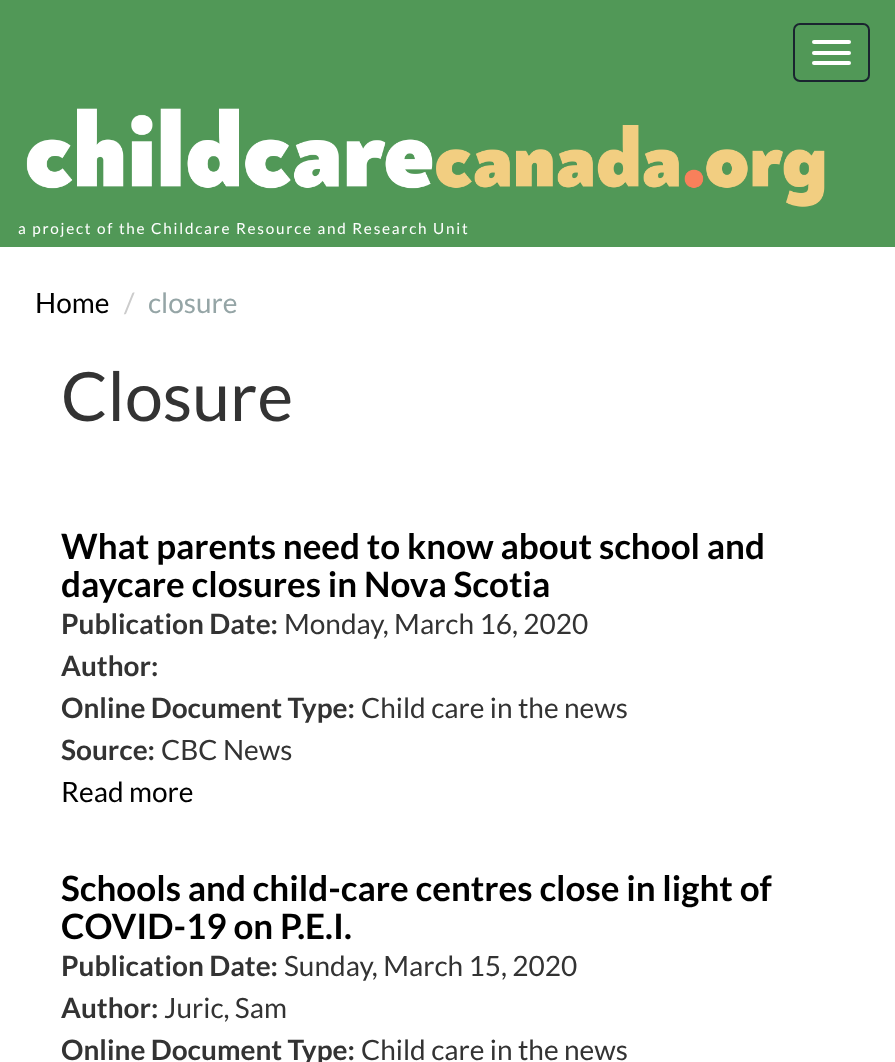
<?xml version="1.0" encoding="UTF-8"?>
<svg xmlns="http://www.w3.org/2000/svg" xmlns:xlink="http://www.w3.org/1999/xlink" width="895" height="1062">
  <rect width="100%" height="100%" fill="#ffffff" />
  <rect width="895" height="247" fill="#519857" />
  <rect x="794" y="24" width="75" height="57" rx="6" fill="none" stroke="#1a242f" stroke-width="2" />
  <rect x="812" y="40" width="39" height="4" rx="2" fill="#ffffff" />
  <rect x="812" y="51" width="39" height="4" rx="2" fill="#ffffff" />
  <rect x="812" y="61" width="39" height="4" rx="2" fill="#ffffff" />
  <image x="26" y="108" width="799" height="99" xlink:href="image1.png" />
  <text x="18" y="234" style="font-family: Lato; font-size: 15.3px; letter-spacing: 1.75px; fill: #ffffff">a project of the Childcare Resource and Research Unit</text>
  <text x="35" y="313" style="font-family: Lato; font-size: 28px; fill: #000000">Home</text>
  <text x="124" y="313" style="font-family: Lato; font-size: 28px; fill: #cccccc">/</text>
  <text x="148" y="313" style="font-family: Lato; font-size: 28px; fill: #95a5a6">closure</text>
  <text x="61" y="421" style="font-family: Lato; font-size: 68px; fill: #333333">Closure</text>
  <text x="61" y="559" style="font-family: Lato; font-size: 35px; font-weight: bold; fill: #000000">What parents need to know about school and</text>
  <text x="61" y="597" style="font-family: Lato; font-size: 35px; font-weight: bold; fill: #000000">daycare closures in Nova Scotia</text>
  <text x="61" y="634" style="font-family: Lato; font-size: 28px; font-weight: bold; fill: #333333">Publication Date:</text>
  <text x="284" y="634" style="font-family: Lato; font-size: 28px; fill: #333333">Monday, March 16, 2020</text>
  <text x="61" y="676" style="font-family: Lato; font-size: 28px; font-weight: bold; fill: #333333">Author:</text>
  <text x="61" y="718" style="font-family: Lato; font-size: 28px; font-weight: bold; fill: #333333">Online Document Type:</text>
  <text x="361" y="718" style="font-family: Lato; font-size: 28px; fill: #333333">Child care in the news</text>
  <text x="61" y="760" style="font-family: Lato; font-size: 28px; font-weight: bold; fill: #333333">Source:</text>
  <text x="161" y="760" style="font-family: Lato; font-size: 28px; fill: #333333">CBC News</text>
  <text x="61" y="802" style="font-family: Lato; font-size: 28px; fill: #000000">Read more</text>
  <text x="61" y="901" style="font-family: Lato; font-size: 35px; font-weight: bold; fill: #000000">Schools and child-care centres close in light of</text>
  <text x="61" y="939" style="font-family: Lato; font-size: 35px; font-weight: bold; fill: #000000">COVID-19 on P.E.I.</text>
  <text x="61" y="976" style="font-family: Lato; font-size: 28px; font-weight: bold; fill: #333333">Publication Date:</text>
  <text x="284" y="976" style="font-family: Lato; font-size: 28px; fill: #333333">Sunday, March 15, 2020</text>
  <text x="61" y="1018" style="font-family: Lato; font-size: 28px; font-weight: bold; fill: #333333">Author:</text>
  <text x="164" y="1018" style="font-family: Lato; font-size: 28px; fill: #333333">Juric, Sam</text>
  <text x="61" y="1060" style="font-family: Lato; font-size: 28px; font-weight: bold; fill: #333333">Online Document Type:</text>
  <text x="361" y="1060" style="font-family: Lato; font-size: 28px; fill: #333333">Child care in the news</text>
</svg>
